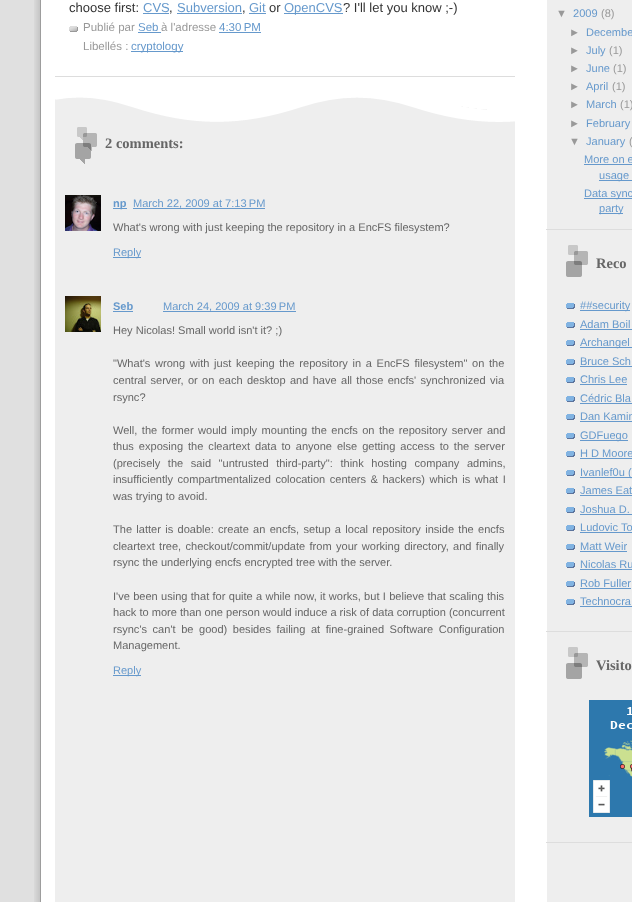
<?xml version="1.0" encoding="UTF-8"?>
<svg xmlns="http://www.w3.org/2000/svg" xmlns:xlink="http://www.w3.org/1999/xlink" width="632" height="902">
  <rect width="100%" height="100%" fill="#e0e0e0" />
  <image x="34" y="0" width="598" height="902" xlink:href="image1.png" />
  <rect x="55" y="76" width="460" height="1" fill="#dddddd" />
  <rect x="143" y="13" width="26" height="1" fill="#6699cc" />
  <rect x="177" y="13" width="65" height="1" fill="#6699cc" />
  <rect x="249" y="13" width="17" height="1" fill="#6699cc" />
  <rect x="284" y="13" width="59" height="1" fill="#6699cc" />
  <image x="69" y="26" width="9" height="6" xlink:href="image2.png" />
  <rect x="138" y="32" width="23" height="1" fill="#6699cc" />
  <rect x="219" y="32" width="42" height="1" fill="#6699cc" />
  <rect x="131" y="51" width="52" height="1" fill="#6699cc" />
  <rect x="55" y="98" width="460" height="804" fill="#eeeeee" />
  <image x="55" y="97" width="460" height="25" xlink:href="image3.png" />
  <image x="75" y="127" width="22" height="37" xlink:href="image4.png" />
  <image x="65" y="195" width="36" height="36" xlink:href="image5.png" />
  <rect x="113" y="208" width="14" height="1" fill="#6699cc" />
  <rect x="133" y="208" width="132" height="1" fill="#6699cc" />
  <rect x="113" y="257" width="28" height="1" fill="#6699cc" />
  <image x="65" y="296" width="36" height="36" xlink:href="image6.png" />
  <rect x="113" y="311" width="20" height="1" fill="#6699cc" />
  <rect x="163" y="311" width="133" height="1" fill="#6699cc" />
  <rect x="113" y="675" width="28" height="1" fill="#6699cc" />
  <rect x="546" y="229" width="86" height="1" fill="#dddddd" />
  <rect x="584" y="164" width="48" height="1" fill="#6699cc" />
  <rect x="599" y="180" width="33" height="1" fill="#6699cc" />
  <rect x="584" y="198" width="48" height="1" fill="#6699cc" />
  <rect x="599" y="213" width="24" height="1" fill="#6699cc" />
  <rect x="546" y="631" width="86" height="1" fill="#dddddd" />
  <image x="566" y="245" width="22" height="32" xlink:href="image7.png" />
  <image x="566" y="303" width="9" height="6" xlink:href="image8.png" />
  <rect x="580" y="310" width="50" height="1" fill="#6699cc" />
  <image x="566" y="322" width="9" height="6" xlink:href="image8.png" />
  <rect x="580" y="329" width="52" height="1" fill="#6699cc" />
  <image x="566" y="340" width="9" height="6" xlink:href="image8.png" />
  <rect x="580" y="347" width="52" height="1" fill="#6699cc" />
  <image x="566" y="359" width="9" height="6" xlink:href="image8.png" />
  <rect x="580" y="366" width="52" height="1" fill="#6699cc" />
  <image x="566" y="377" width="9" height="6" xlink:href="image8.png" />
  <rect x="580" y="384" width="47" height="1" fill="#6699cc" />
  <image x="566" y="396" width="9" height="6" xlink:href="image8.png" />
  <rect x="580" y="403" width="52" height="1" fill="#6699cc" />
  <image x="566" y="414" width="9" height="6" xlink:href="image8.png" />
  <rect x="580" y="421" width="52" height="1" fill="#6699cc" />
  <image x="566" y="433" width="9" height="6" xlink:href="image8.png" />
  <rect x="580" y="440" width="48" height="1" fill="#6699cc" />
  <image x="566" y="451" width="9" height="6" xlink:href="image8.png" />
  <rect x="580" y="458" width="52" height="1" fill="#6699cc" />
  <image x="566" y="470" width="9" height="6" xlink:href="image8.png" />
  <rect x="580" y="477" width="52" height="1" fill="#6699cc" />
  <image x="566" y="488" width="9" height="6" xlink:href="image8.png" />
  <rect x="580" y="495" width="52" height="1" fill="#6699cc" />
  <image x="566" y="507" width="9" height="6" xlink:href="image8.png" />
  <rect x="580" y="514" width="52" height="1" fill="#6699cc" />
  <image x="566" y="525" width="9" height="6" xlink:href="image8.png" />
  <rect x="580" y="532" width="52" height="1" fill="#6699cc" />
  <image x="566" y="544" width="9" height="6" xlink:href="image8.png" />
  <rect x="580" y="551" width="47" height="1" fill="#6699cc" />
  <image x="566" y="562" width="9" height="6" xlink:href="image8.png" />
  <rect x="580" y="569" width="52" height="1" fill="#6699cc" />
  <image x="566" y="581" width="9" height="6" xlink:href="image8.png" />
  <rect x="580" y="588" width="51" height="1" fill="#6699cc" />
  <image x="566" y="599" width="9" height="6" xlink:href="image8.png" />
  <rect x="580" y="606" width="52" height="1" fill="#6699cc" />
  <rect x="546" y="842" width="86" height="1" fill="#dddddd" />
  <image x="566" y="647" width="22" height="32" xlink:href="image7.png" />
  <image x="589" y="700" width="43" height="117" xlink:href="image9.png" />
  <text x="69" y="12" style="font-family: Liberation Sans; font-size: 13px; fill: #333333">choose first:</text>
  <text x="143" y="12" style="font-family: Liberation Sans; font-size: 13px; fill: #6699cc">CVS</text>
  <text x="169" y="12" style="font-family: Liberation Sans; font-size: 13px; fill: #333333">,</text>
  <text x="177" y="12" style="font-family: Liberation Sans; font-size: 13px; fill: #6699cc">Subversion</text>
  <text x="242" y="12" style="font-family: Liberation Sans; font-size: 13px; fill: #333333">,</text>
  <text x="249" y="12" style="font-family: Liberation Sans; font-size: 13px; fill: #6699cc">Git</text>
  <text x="269" y="12" style="font-family: Liberation Sans; font-size: 13px; fill: #333333">or</text>
  <text x="284" y="12" style="font-family: Liberation Sans; font-size: 13px; fill: #6699cc">OpenCVS</text>
  <text x="343" y="12" style="font-family: Liberation Sans; font-size: 13px; fill: #333333">? I'll let you know ;-)</text>
  <text x="83" y="31" style="font-family: Liberation Sans; font-size: 11.5px; fill: #999999">Publié par</text>
  <text x="138" y="31" style="font-family: Liberation Sans; font-size: 11.5px; fill: #6699cc">Seb</text>
  <text x="161" y="31" style="font-family: Liberation Sans; font-size: 11.5px; fill: #999999">à l'adresse</text>
  <text x="219" y="31" style="font-family: Liberation Sans; font-size: 11.5px; fill: #6699cc">4:30 PM</text>
  <text x="83" y="50" style="font-family: Liberation Sans; font-size: 11.5px; fill: #999999">Libellés :</text>
  <text x="131" y="50" style="font-family: Liberation Sans; font-size: 11.5px; fill: #6699cc">cryptology</text>
  <text x="105" y="148" style="font-family: Liberation Serif; font-size: 14.5px; font-weight: bold; fill: #666666">2 comments:</text>
  <text x="113" y="207" style="font-family: Liberation Sans; font-size: 11.05px; font-weight: bold; fill: #6699cc">np</text>
  <text x="133" y="207" style="font-family: Liberation Sans; font-size: 11.05px; fill: #6699cc">March 22, 2009 at 7:13 PM</text>
  <text x="113" y="231" style="font-family: Liberation Sans; font-size: 11.05px; fill: #666666">What's wrong with just keeping the repository in a EncFS filesystem?</text>
  <text x="113" y="256" style="font-family: Liberation Sans; font-size: 11.05px; fill: #6699cc">Reply</text>
  <text x="113" y="310" style="font-family: Liberation Sans; font-size: 11.05px; font-weight: bold; fill: #6699cc">Seb</text>
  <text x="163" y="310" style="font-family: Liberation Sans; font-size: 11.05px; fill: #6699cc">March 24, 2009 at 9:39 PM</text>
  <text x="113" y="334" style="font-family: Liberation Sans; font-size: 11.05px; fill: #666666">Hey Nicolas! Small world isn't it? ;)</text>
  <text x="113" y="367" word-spacing="1.6" style="font-family: Liberation Sans; font-size: 11.05px; fill: #666666">"What's wrong with just keeping the repository in a EncFS filesystem" on the</text>
  <text x="113" y="384" word-spacing="1.25" style="font-family: Liberation Sans; font-size: 11.05px; fill: #666666">central server, or on each desktop and have all those encfs' synchronized via</text>
  <text x="113" y="401" style="font-family: Liberation Sans; font-size: 11.05px; fill: #666666">rsync?</text>
  <text x="113" y="434" word-spacing="1.4" style="font-family: Liberation Sans; font-size: 11.05px; fill: #666666">Well, the former would imply mounting the encfs on the repository server and</text>
  <text x="113" y="450" word-spacing="1.9" style="font-family: Liberation Sans; font-size: 11.05px; fill: #666666">thus exposing the cleartext data to anyone else getting access to the server</text>
  <text x="113" y="467" word-spacing="4.5" style="font-family: Liberation Sans; font-size: 11.05px; fill: #666666">(precisely the said "untrusted third-party": think hosting company admins,</text>
  <text x="113" y="483" word-spacing="1.5" style="font-family: Liberation Sans; font-size: 11.05px; fill: #666666">insufficiently compartmentalized colocation centers &amp; hackers) which is what I</text>
  <text x="113" y="500" style="font-family: Liberation Sans; font-size: 11.05px; fill: #666666">was trying to avoid.</text>
  <text x="113" y="533" word-spacing="1.25" style="font-family: Liberation Sans; font-size: 11.05px; fill: #666666">The latter is doable: create an encfs, setup a local repository inside the encfs</text>
  <text x="113" y="550" word-spacing="1.25" style="font-family: Liberation Sans; font-size: 11.05px; fill: #666666">cleartext tree, checkout/commit/update from your working directory, and finally</text>
  <text x="113" y="566" style="font-family: Liberation Sans; font-size: 11.05px; fill: #666666">rsync the underlying encfs encrypted tree with the server.</text>
  <text x="113" y="600" word-spacing="0.25" style="font-family: Liberation Sans; font-size: 11.05px; fill: #666666">I've been using that for quite a while now, it works, but I believe that scaling this</text>
  <text x="113" y="616" style="font-family: Liberation Sans; font-size: 11.05px; fill: #666666">hack to more than one person would induce a risk of data corruption (concurrent</text>
  <text x="113" y="633" word-spacing="2.5" style="font-family: Liberation Sans; font-size: 11.05px; fill: #666666">rsync's can't be good) besides failing at fine-grained Software Configuration</text>
  <text x="113" y="649" style="font-family: Liberation Sans; font-size: 11.05px; fill: #666666">Management.</text>
  <text x="113" y="674" style="font-family: Liberation Sans; font-size: 11.05px; fill: #6699cc">Reply</text>
  <text x="556" y="17" style="font-family: Liberation Sans; font-size: 11.05px; fill: #999999">▼</text>
  <text x="573" y="17" style="font-family: Liberation Sans; font-size: 11.05px; fill: #6699cc">2009</text>
  <text x="601" y="17" style="font-family: Liberation Sans; font-size: 11.05px; fill: #999999">(8)</text>
  <text x="569" y="36" style="font-family: Liberation Sans; font-size: 11.05px; fill: #999999">►</text>
  <text x="586" y="36" style="font-family: Liberation Sans; font-size: 11.05px; fill: #6699cc">Decembe</text>
  <text x="569" y="54" style="font-family: Liberation Sans; font-size: 11.05px; fill: #999999">►</text>
  <text x="586" y="54" style="font-family: Liberation Sans; font-size: 11.05px; fill: #6699cc">July</text>
  <text x="609" y="54" style="font-family: Liberation Sans; font-size: 11.05px; fill: #999999">(1)</text>
  <text x="569" y="72" style="font-family: Liberation Sans; font-size: 11.05px; fill: #999999">►</text>
  <text x="586" y="72" style="font-family: Liberation Sans; font-size: 11.05px; fill: #6699cc">June</text>
  <text x="613" y="72" style="font-family: Liberation Sans; font-size: 11.05px; fill: #999999">(1)</text>
  <text x="569" y="90" style="font-family: Liberation Sans; font-size: 11.05px; fill: #999999">►</text>
  <text x="586" y="90" style="font-family: Liberation Sans; font-size: 11.05px; fill: #6699cc">April</text>
  <text x="612" y="90" style="font-family: Liberation Sans; font-size: 11.05px; fill: #999999">(1)</text>
  <text x="569" y="108" style="font-family: Liberation Sans; font-size: 11.05px; fill: #999999">►</text>
  <text x="586" y="108" style="font-family: Liberation Sans; font-size: 11.05px; fill: #6699cc">March</text>
  <text x="620" y="108" style="font-family: Liberation Sans; font-size: 11.05px; fill: #999999">(1)</text>
  <text x="569" y="127" style="font-family: Liberation Sans; font-size: 11.05px; fill: #999999">►</text>
  <text x="586" y="127" style="font-family: Liberation Sans; font-size: 11.05px; fill: #6699cc">February</text>
  <text x="569" y="145" style="font-family: Liberation Sans; font-size: 11.05px; fill: #999999">▼</text>
  <text x="586" y="145" style="font-family: Liberation Sans; font-size: 11.05px; fill: #6699cc">January</text>
  <text x="629" y="145" style="font-family: Liberation Sans; font-size: 11.05px; fill: #999999">(</text>
  <text x="584" y="163" style="font-family: Liberation Sans; font-size: 11.05px; fill: #6699cc">More on e</text>
  <text x="599" y="179" style="font-family: Liberation Sans; font-size: 11.05px; fill: #6699cc">usage</text>
  <text x="584" y="197" style="font-family: Liberation Sans; font-size: 11.05px; fill: #6699cc">Data sync</text>
  <text x="599" y="212" style="font-family: Liberation Sans; font-size: 11.05px; fill: #6699cc">party</text>
  <text x="596" y="268" style="font-family: Liberation Serif; font-size: 14.5px; font-weight: bold; fill: #666666">Reco</text>
  <text x="580" y="309" style="font-family: Liberation Sans; font-size: 11.05px; fill: #6699cc">##security</text>
  <text x="580" y="328" style="font-family: Liberation Sans; font-size: 11.05px; fill: #6699cc">Adam Boil</text>
  <text x="580" y="346" style="font-family: Liberation Sans; font-size: 11.05px; fill: #6699cc">Archangel</text>
  <text x="580" y="365" style="font-family: Liberation Sans; font-size: 11.05px; fill: #6699cc">Bruce Sch</text>
  <text x="580" y="383" style="font-family: Liberation Sans; font-size: 11.05px; fill: #6699cc">Chris Lee</text>
  <text x="580" y="402" style="font-family: Liberation Sans; font-size: 11.05px; fill: #6699cc">Cédric Bla</text>
  <text x="580" y="420" style="font-family: Liberation Sans; font-size: 11.05px; fill: #6699cc">Dan Kamin</text>
  <text x="580" y="439" style="font-family: Liberation Sans; font-size: 11.05px; fill: #6699cc">GDFuego</text>
  <text x="580" y="457" style="font-family: Liberation Sans; font-size: 11.05px; fill: #6699cc">H D Moore</text>
  <text x="580" y="476" style="font-family: Liberation Sans; font-size: 11.05px; fill: #6699cc">Ivanlef0u (</text>
  <text x="580" y="494" style="font-family: Liberation Sans; font-size: 11.05px; fill: #6699cc">James Eat</text>
  <text x="580" y="513" style="font-family: Liberation Sans; font-size: 11.05px; fill: #6699cc">Joshua D.</text>
  <text x="580" y="531" style="font-family: Liberation Sans; font-size: 11.05px; fill: #6699cc">Ludovic To</text>
  <text x="580" y="550" style="font-family: Liberation Sans; font-size: 11.05px; fill: #6699cc">Matt Weir</text>
  <text x="580" y="568" style="font-family: Liberation Sans; font-size: 11.05px; fill: #6699cc">Nicolas Ru</text>
  <text x="580" y="587" style="font-family: Liberation Sans; font-size: 11.05px; fill: #6699cc">Rob Fuller</text>
  <text x="580" y="605" style="font-family: Liberation Sans; font-size: 11.05px; fill: #6699cc">Technocra</text>
  <text x="596" y="670" style="font-family: Liberation Serif; font-size: 14.5px; font-weight: bold; fill: #666666">Visito</text>
</svg>
